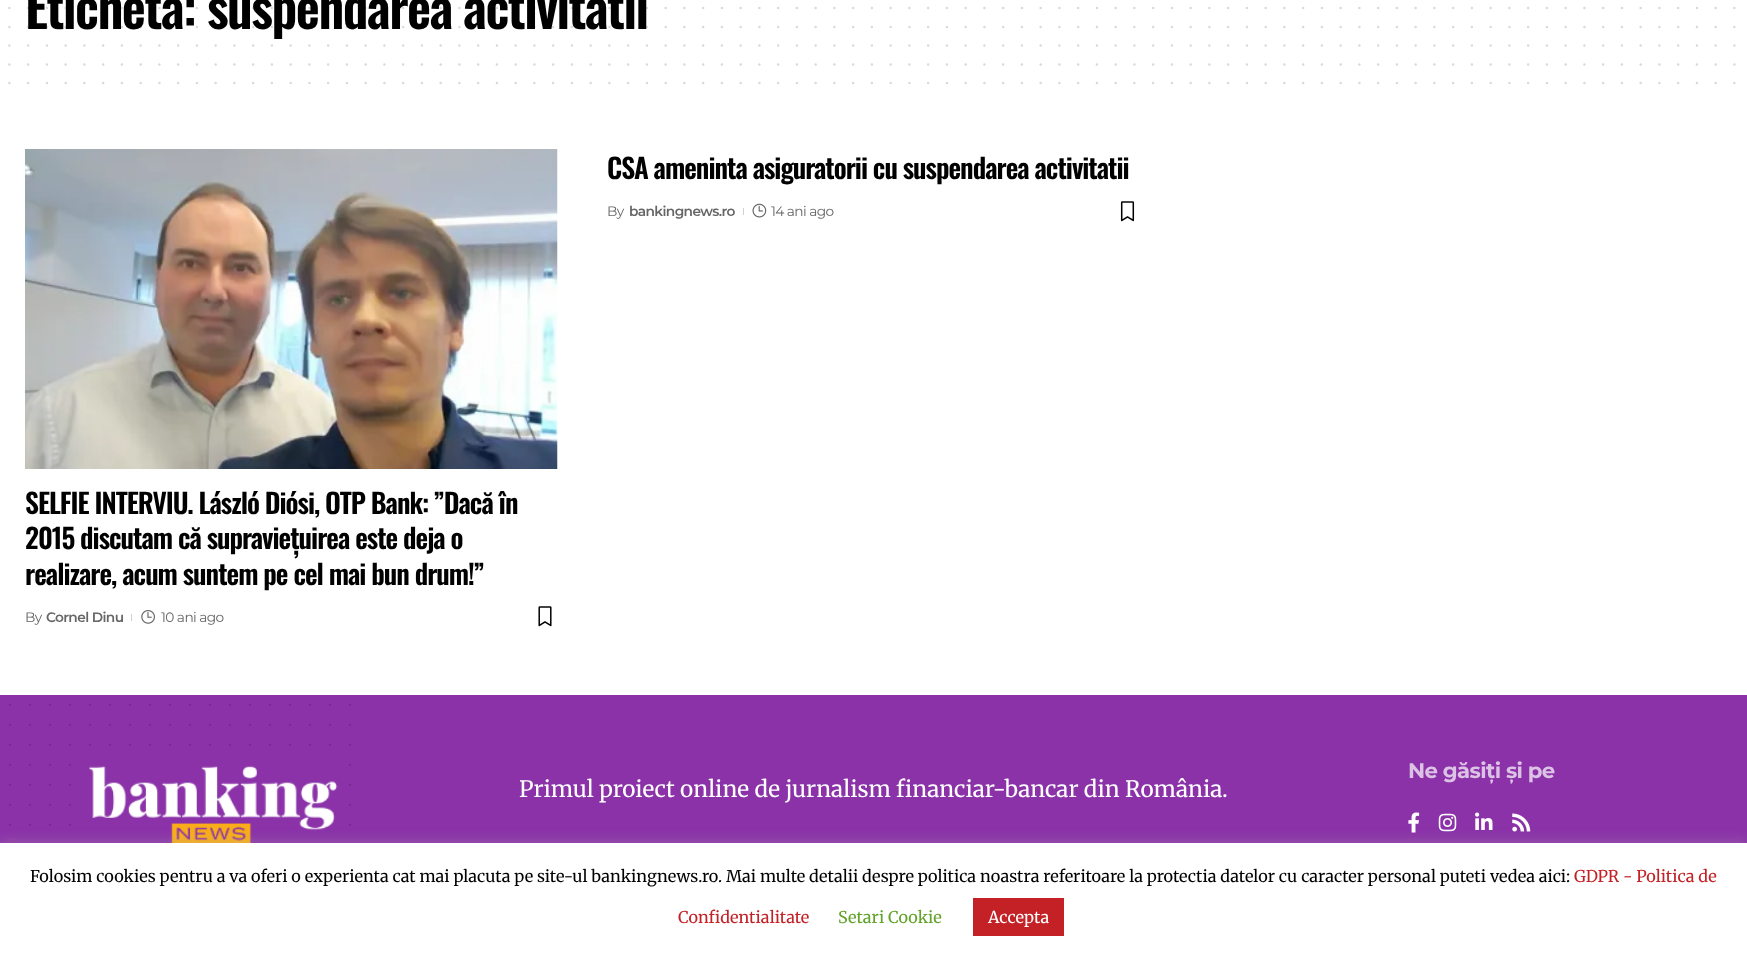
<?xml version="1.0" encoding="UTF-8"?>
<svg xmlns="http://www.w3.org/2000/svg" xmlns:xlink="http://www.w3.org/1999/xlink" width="1747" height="957">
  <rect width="100%" height="100%" fill="#ffffff" />
  <path d="M 9.4 45.6 h 1725.2" fill="none" stroke="#d9d9d9" stroke-width="2.5" stroke-linecap="round" stroke-dasharray="0 18.75" />
  <path d="M 9.4 64.4 h 1725.2" fill="none" stroke="#d9d9d9" stroke-width="2.5" stroke-linecap="round" stroke-dasharray="0 18.75" />
  <path d="M 9.4 83.1 h 1725.2" fill="none" stroke="#d9d9d9" stroke-width="2.5" stroke-linecap="round" stroke-dasharray="0 18.75" />
  <rect x="743" y="208" width="1" height="7" fill="#d1d1d1" />
  <image x="752" y="203" width="15" height="15" xlink:href="image1.png" />
  <image x="1120" y="201" width="15" height="21" xlink:href="image2.png" />
  <image x="25" y="149" width="533" height="320" xlink:href="image3.png" />
  <rect x="131" y="614" width="1" height="7" fill="#d1d1d1" />
  <image x="141" y="610" width="14" height="14" xlink:href="image4.png" />
  <image x="538" y="606" width="14" height="21" xlink:href="image5.png" />
  <rect y="695" width="1747" height="148" fill="#8b32a9" />
  <path d="M 10 705 h 340.2" fill="none" stroke="#6f2887" stroke-width="1.9" stroke-linecap="round" stroke-dasharray="0 20" />
  <path d="M 10 725 h 340.2" fill="none" stroke="#6f2887" stroke-width="1.9" stroke-linecap="round" stroke-dasharray="0 20" />
  <path d="M 10 745 h 340.2" fill="none" stroke="#6f2887" stroke-width="1.9" stroke-linecap="round" stroke-dasharray="0 20" />
  <path d="M 10 765 h 340.2" fill="none" stroke="#6f2887" stroke-width="1.9" stroke-linecap="round" stroke-dasharray="0 20" />
  <path d="M 10 785 h 340.2" fill="none" stroke="#6f2887" stroke-width="1.9" stroke-linecap="round" stroke-dasharray="0 20" />
  <path d="M 10 805 h 340.2" fill="none" stroke="#6f2887" stroke-width="1.9" stroke-linecap="round" stroke-dasharray="0 20" />
  <path d="M 10 825 h 340.2" fill="none" stroke="#6f2887" stroke-width="1.9" stroke-linecap="round" stroke-dasharray="0 20" />
  <image x="89" y="764" width="249" height="79" xlink:href="image6.png" />
  <image x="1408" y="812" width="12" height="21" xlink:href="image7.png" />
  <image x="1438" y="813" width="19" height="19" xlink:href="image8.png" />
  <image x="1475" y="812" width="18" height="18" xlink:href="image9.png" />
  <image x="1512" y="813" width="19" height="19" xlink:href="image10.png" />
  <rect y="841" width="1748" height="115" fill="#acabab" fill-opacity="0.3" filter="blur(6px)" />
  <rect y="843" width="1747" height="114" fill="#ffffff" />
  <rect x="973" y="898" width="91" height="38" fill="#c32126" />
  <text x="25" y="29" style="font-family: Oswald; font-size: 52.5px; font-weight: 600; letter-spacing: -1.5px; fill: #000000">Etichetă: suspendarea activitatii</text>
  <path d="M 9.4 8.1 h 1725.2" fill="none" stroke="#000000" stroke-opacity="0.15" stroke-width="2.5" stroke-linecap="round" stroke-dasharray="0 18.75" />
  <path d="M 9.4 26.9 h 1725.2" fill="none" stroke="#000000" stroke-opacity="0.15" stroke-width="2.5" stroke-linecap="round" stroke-dasharray="0 18.75" />
  <text x="607" y="179" style="font-family: Oswald; font-size: 27.5px; font-weight: 600; letter-spacing: -1px; fill: #000000">CSA ameninta asiguratorii cu suspendarea activitatii</text>
  <text x="607" y="216" style="font-family: Montserrat; font-size: 13.75px; letter-spacing: -0.6px; fill: #666666">By</text>
  <text x="629" y="216" style="font-family: Montserrat; font-size: 13.75px; font-weight: 600; letter-spacing: -0.6px; fill: #666666">bankingnews.ro</text>
  <text x="771" y="216" style="font-family: Montserrat; font-size: 13.75px; letter-spacing: -0.6px; fill: #666666">14 ani ago</text>
  <text x="25" y="514" style="font-family: Oswald; font-size: 27.5px; font-weight: 600; letter-spacing: -1px; fill: #000000">SELFIE INTERVIU. László Diósi, OTP Bank: ”Dacă în</text>
  <text x="25" y="549" style="font-family: Oswald; font-size: 27.5px; font-weight: 600; letter-spacing: -1px; fill: #000000">2015 discutam că supraviețuirea este deja o</text>
  <text x="25" y="585" style="font-family: Oswald; font-size: 27.5px; font-weight: 600; letter-spacing: -1px; fill: #000000">realizare, acum suntem pe cel mai bun drum!”</text>
  <text x="25" y="622" style="font-family: Montserrat; font-size: 13.75px; letter-spacing: -0.6px; fill: #666666">By</text>
  <text x="46" y="622" style="font-family: Montserrat; font-size: 13.75px; font-weight: 600; letter-spacing: -0.6px; fill: #666666">Cornel Dinu</text>
  <text x="161" y="622" style="font-family: Montserrat; font-size: 13.75px; letter-spacing: -0.6px; fill: #666666">10 ani ago</text>
  <text x="519" y="797" style="font-family: Merriweather; font-size: 22.5px; fill: #ffffff">Primul proiect online de jurnalism financiar-bancar din România.</text>
  <text x="1408" y="778" style="font-family: Montserrat; font-size: 21.25px; font-weight: bold; letter-spacing: -0.6px; fill: #dcc2e5">Ne găsiți și pe</text>
  <text x="30" y="882" style="font-family: Merriweather; font-size: 16.25px; fill: #000000">Folosim cookies pentru a va oferi o experienta cat mai placuta pe site-ul bankingnews.ro. Mai multe detalii despre politica noastra referitoare la protectia datelor cu caracter personal puteti vedea aici:</text>
  <text x="1574" y="882" style="font-family: Merriweather; font-size: 16.25px; fill: #c32126">GDPR - Politica de</text>
  <text x="678" y="923" style="font-family: Merriweather; font-size: 16.25px; fill: #c32126">Confidentialitate</text>
  <text x="838" y="923" style="font-family: Merriweather; font-size: 16.25px; fill: #62a329">Setari Cookie</text>
  <text x="988" y="923" style="font-family: Merriweather; font-size: 16.25px; fill: #ffffff">Accepta</text>
</svg>
